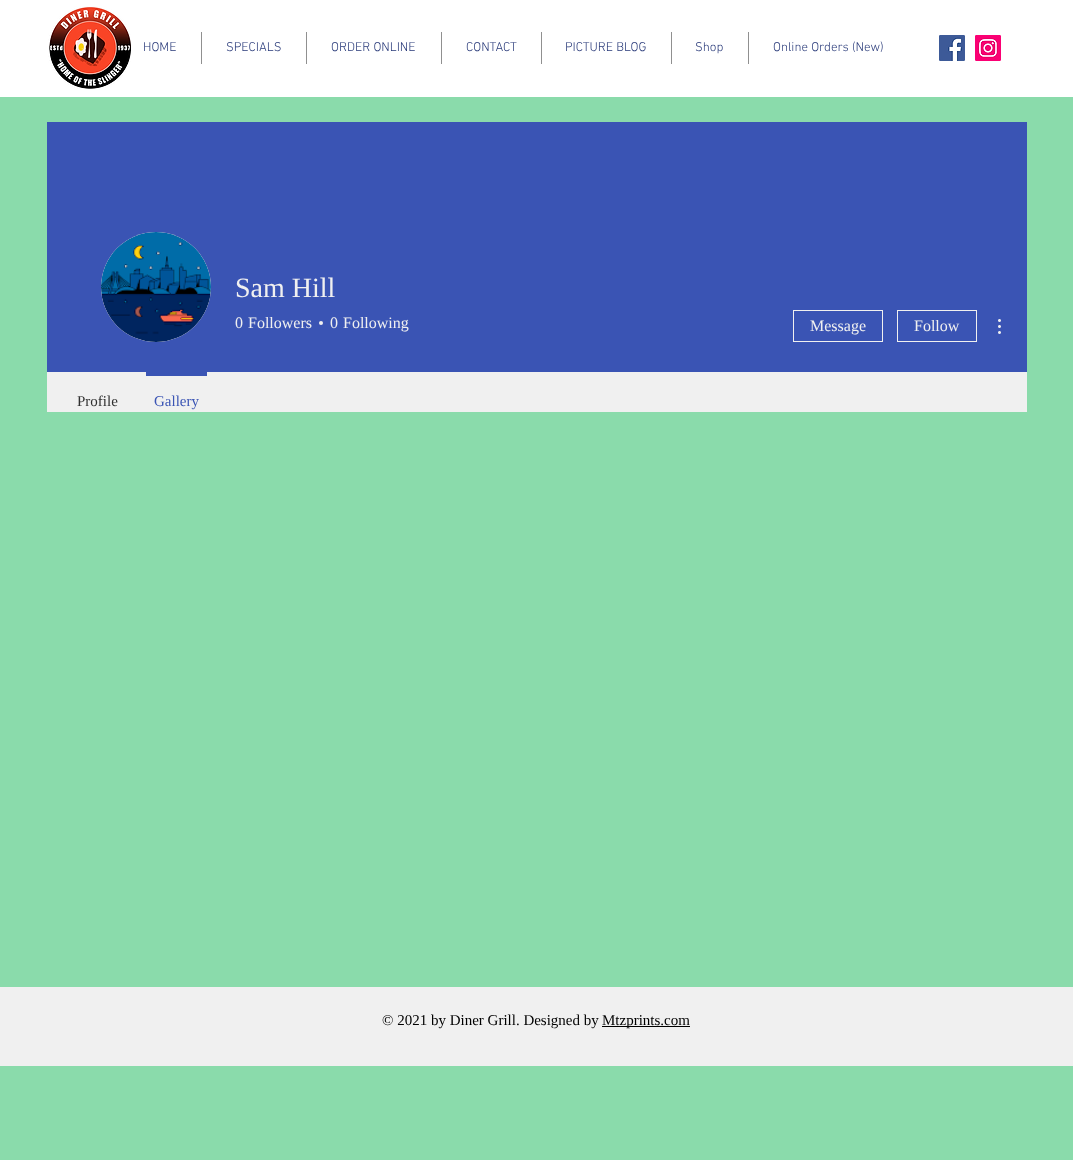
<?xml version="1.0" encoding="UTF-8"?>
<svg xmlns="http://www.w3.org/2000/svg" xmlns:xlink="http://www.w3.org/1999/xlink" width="1073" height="1160">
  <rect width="100%" height="100%" fill="#8adbab" />
  <rect width="1073" height="97" fill="#ffffff" />
  <image x="48" y="6" width="83" height="84" xlink:href="image1.png" />
  <rect x="201" y="32" width="1" height="32" fill="#909090" />
  <rect x="306" y="32" width="1" height="32" fill="#909090" />
  <rect x="441" y="32" width="1" height="32" fill="#909090" />
  <rect x="541" y="32" width="1" height="32" fill="#909090" />
  <rect x="671" y="32" width="1" height="32" fill="#909090" />
  <rect x="748" y="32" width="1" height="32" fill="#909090" />
  <image x="939" y="35" width="26" height="26" xlink:href="image2.png" />
  <image x="975" y="35" width="26" height="26" xlink:href="image3.png" />
  <rect x="47" y="122" width="980" height="250" fill="#3a54b4" />
  <circle cx="156" cy="287" r="55" fill="#d8d8d8" />
  <image x="101" y="232" width="110" height="110" xlink:href="image4.png" />
  <circle cx="321" cy="323" r="2" fill="#f0f0f0" />
  <rect x="793.5" y="310.5" width="89" height="31" fill="none" stroke="#f0f0f0" />
  <rect x="897.5" y="310.5" width="79" height="31" fill="none" stroke="#f0f0f0" />
  <image x="998" y="319" width="3" height="15" xlink:href="image5.png" />
  <rect x="47" y="372" width="980" height="40" fill="#f0f0f0" />
  <rect x="146" y="372" width="61" height="4" fill="#3a54b4" />
  <rect y="987" width="1073" height="79" fill="#f0f0f0" />
  <rect x="602" y="1026" width="88" height="1" fill="#000000" />
  <text x="143" y="51" style="font-family: 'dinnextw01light'; font-size: 13px; font-weight: 300; fill: #273878">HOME</text>
  <text x="226" y="51" style="font-family: 'dinnextw01light'; font-size: 13px; font-weight: 300; fill: #273878">SPECIALS</text>
  <text x="331" y="51" style="font-family: 'dinnextw01light'; font-size: 13px; font-weight: 300; fill: #273878">ORDER ONLINE</text>
  <text x="466" y="51" style="font-family: 'dinnextw01light'; font-size: 13px; font-weight: 300; fill: #273878">CONTACT</text>
  <text x="565" y="51" style="font-family: 'dinnextw01light'; font-size: 13px; font-weight: 300; fill: #273878">PICTURE BLOG</text>
  <text x="695" y="51" style="font-family: 'dinnextw01light'; font-size: 13px; font-weight: 300; fill: #273878">Shop</text>
  <text x="773" y="51" style="font-family: 'dinnextw01light'; font-size: 13px; font-weight: 300; fill: #273878">Online Orders (New)</text>
  <text x="235" y="297" style="font-family: Liberation Serif; font-size: 28px; fill: #f0f0f0">Sam Hill</text>
  <text x="235" y="328" style="font-family: Liberation Serif; font-size: 16px; fill: #f0f0f0">0</text>
  <text x="248" y="328" style="font-family: Liberation Serif; font-size: 16px; fill: #f0f0f0">Followers</text>
  <text x="330" y="328" style="font-family: Liberation Serif; font-size: 16px; fill: #f0f0f0">0</text>
  <text x="343" y="328" style="font-family: Liberation Serif; font-size: 16px; fill: #f0f0f0">Following</text>
  <text x="810" y="331" style="font-family: Liberation Serif; font-size: 16px; fill: #f0f0f0">Message</text>
  <text x="914" y="331" style="font-family: Liberation Serif; font-size: 16px; fill: #f0f0f0">Follow</text>
  <text x="77" y="406" style="font-family: Liberation Serif; font-size: 15px; fill: #303030">Profile</text>
  <text x="154" y="406" style="font-family: Liberation Serif; font-size: 15px; fill: #3a54b4">Gallery</text>
  <text x="382" y="1025" style="font-family: Liberation Serif; font-size: 15px; fill: #000000">© 2021 by Diner Grill. Designed by</text>
  <text x="602" y="1025" style="font-family: Liberation Serif; font-size: 15px; fill: #000000">Mtzprints.com</text>
</svg>
